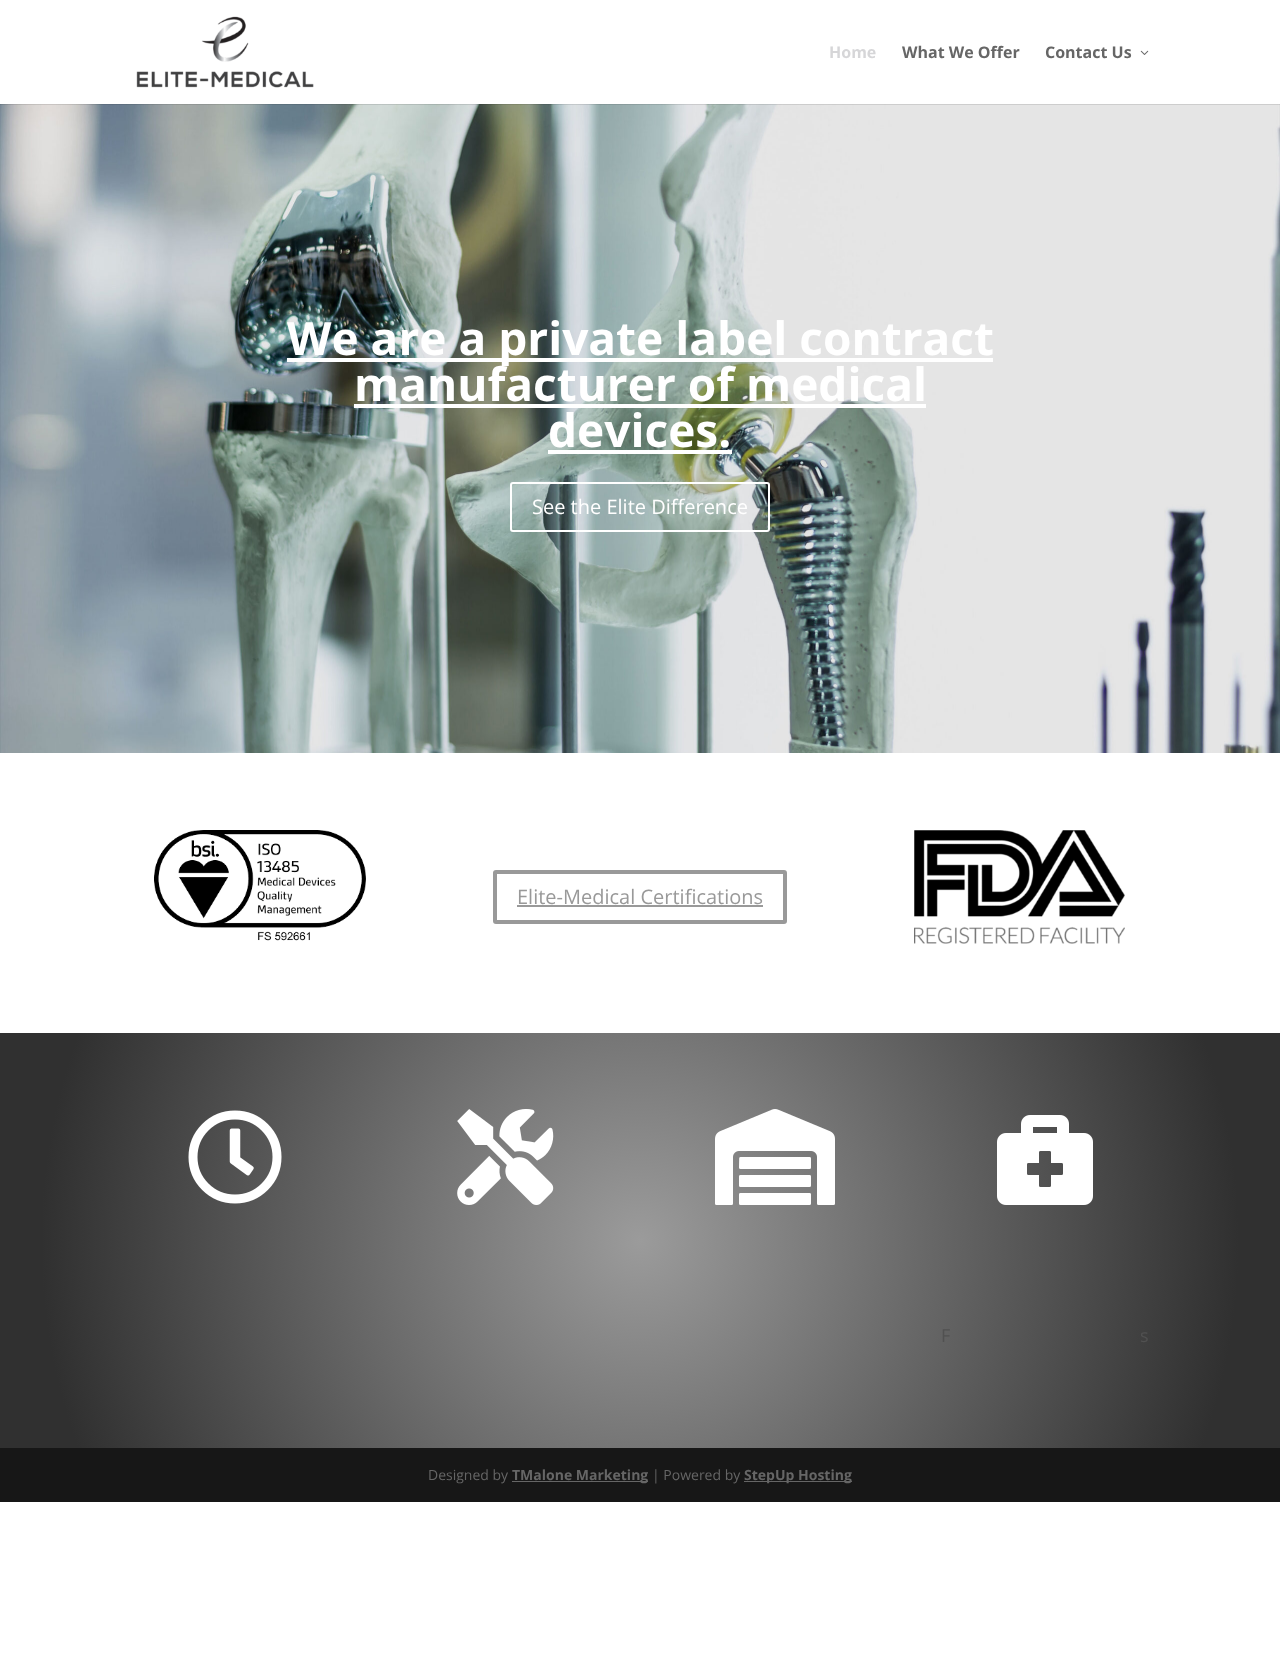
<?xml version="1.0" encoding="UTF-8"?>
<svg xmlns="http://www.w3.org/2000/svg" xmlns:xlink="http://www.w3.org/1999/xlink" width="1280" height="1674">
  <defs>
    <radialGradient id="g1" gradientUnits="userSpaceOnUse" cx="640" cy="1241" r="673"><stop offset="0" stop-color="#9b9b9b" /><stop offset="0.89" stop-color="#303030" /></radialGradient>
  </defs>
  <rect width="100%" height="100%" fill="#ffffff" />
  <image x="0" y="104" width="1280" height="649" xlink:href="image3.png" />
  <rect y="104" width="1280" height="1" fill="#000000" fill-opacity="0.1" />
  <image x="136" y="16" width="178" height="72" xlink:href="image1.png" />
  <image x="1140" y="50" width="9" height="5" xlink:href="image2.png" />
  <rect x="287" y="358" width="706" height="4" fill="#ffffff" />
  <rect x="354" y="404" width="572" height="4" fill="#ffffff" />
  <rect x="548" y="450" width="184" height="4" fill="#ffffff" />
  <rect x="511" y="483" width="258" height="48" rx="2" fill="none" stroke="#ffffff" stroke-width="2" />
  <image x="154" y="830" width="212" height="111" xlink:href="image4.png" />
  <rect x="495" y="872" width="290" height="50" rx="1" fill="none" stroke="#999999" stroke-width="4" />
  <rect x="517" y="905" width="246" height="2" fill="#999999" />
  <image x="914" y="830" width="211" height="114" xlink:href="image5.png" />
  <rect y="1033" width="1280" height="415" fill="url(#g1)" />
  <image x="188" y="1110" width="94" height="94" xlink:href="image6.png" />
  <image x="457" y="1109" width="97" height="96" xlink:href="image7.png" />
  <image x="715" y="1109" width="120" height="96" xlink:href="image8.png" />
  <image x="997" y="1115" width="96" height="90" xlink:href="image9.png" />
  <rect y="1448" width="1280" height="54" fill="#171717" />
  <rect x="512" y="1481" width="136" height="1" fill="#666666" />
  <rect x="744" y="1481" width="108" height="1" fill="#666666" />
  <text x="829" y="58" style="font-family: Open Sans; font-size: 16px; font-weight: bold; fill: #d6d6d8">Home</text>
  <text x="902" y="58" style="font-family: Open Sans; font-size: 16px; font-weight: bold; fill: #666666">What We Offer</text>
  <text x="1045" y="58" style="font-family: Open Sans; font-size: 16px; font-weight: bold; fill: #666666">Contact Us</text>
  <text x="287" y="355" style="font-family: Open Sans; font-size: 46px; font-weight: bold; fill: #ffffff">We are a private label contract</text>
  <text x="354" y="401" style="font-family: Open Sans; font-size: 46px; font-weight: bold; fill: #ffffff">manufacturer of medical</text>
  <text x="548" y="447" style="font-family: Open Sans; font-size: 46px; font-weight: bold; fill: #ffffff">devices.</text>
  <text x="532" y="514" style="font-family: Open Sans; font-size: 20px; fill: #ffffff">See the Elite Difference</text>
  <text x="517" y="904" style="font-family: Open Sans; font-size: 20px; fill: #999999">Elite-Medical Certifications</text>
  <text x="941" y="1342" style="font-family: Open Sans; font-size: 18px; fill: #515151">F</text>
  <text x="1140" y="1342" style="font-family: Open Sans; font-size: 18px; fill: #515151">s</text>
  <text x="428" y="1480" style="font-family: Open Sans; font-size: 14px; fill: #666666">Designed by</text>
  <text x="512" y="1480" style="font-family: Open Sans; font-size: 14px; font-weight: bold; fill: #666666">TMalone Marketing</text>
  <text x="652" y="1480" style="font-family: Open Sans; font-size: 14px; fill: #666666">| Powered by</text>
  <text x="744" y="1480" style="font-family: Open Sans; font-size: 14px; font-weight: bold; fill: #666666">StepUp Hosting</text>
</svg>
